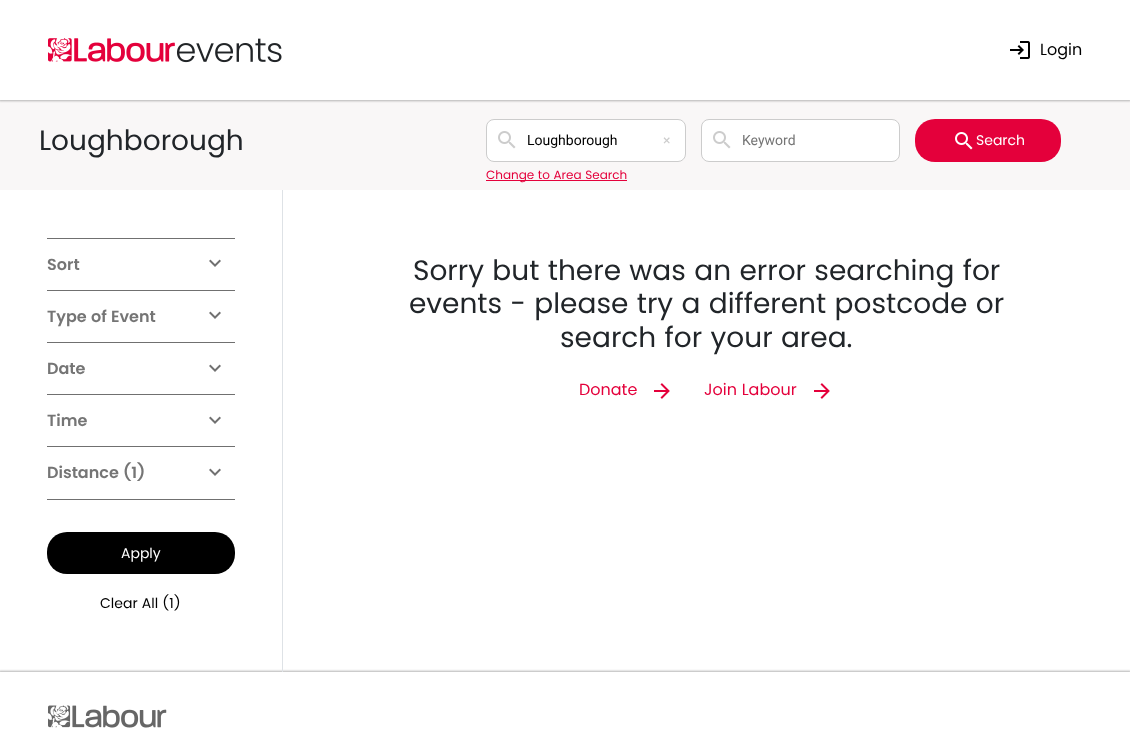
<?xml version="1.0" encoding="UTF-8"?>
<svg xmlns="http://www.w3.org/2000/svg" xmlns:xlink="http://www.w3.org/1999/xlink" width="1130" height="736">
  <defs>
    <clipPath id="clip1"><rect x="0" y="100" width="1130" height="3" /></clipPath>
    <clipPath id="clip2"><rect x="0" y="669" width="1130" height="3" /></clipPath>
  </defs>
  <rect width="100%" height="100%" fill="#ffffff" />
  <rect y="100" width="1130" height="90" fill="#f9f7f7" />
  <g clip-path="url(#clip1)">
    <rect x="-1" y="-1" width="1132" height="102" fill="#b3b3b3" filter="blur(1px)" />
  </g>
  <image x="48" y="38" width="234" height="25" xlink:href="image1.png" />
  <image x="1010" y="41" width="20" height="18" xlink:href="image2.png" />
  <rect x="486.5" y="119.5" width="199" height="42" rx="7.5" fill="#ffffff" stroke="#cccccc" />
  <image x="498" y="131" width="18" height="18" xlink:href="image3.png" />
  <rect x="486" y="180" width="141" height="1" fill="#e4003b" />
  <rect x="701.5" y="119.5" width="198" height="42" rx="7.5" fill="#ffffff" stroke="#cccccc" />
  <image x="713" y="131" width="18" height="18" xlink:href="image3.png" />
  <rect x="915" y="119" width="146" height="43" rx="20" fill="#e4003b" />
  <image x="955" y="132" width="18" height="18" xlink:href="image4.png" />
  <g clip-path="url(#clip2)">
    <rect x="-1" y="671" width="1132" height="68" fill="#b3b3b3" filter="blur(1px)" />
  </g>
  <rect x="282" y="190" width="1" height="482" fill="#dee2e6" />
  <rect x="47" y="238" width="188" height="1" fill="#707070" />
  <rect x="47" y="290" width="188" height="1" fill="#707070" />
  <image x="209" y="259" width="12" height="8" xlink:href="image5.png" />
  <rect x="47" y="342" width="188" height="1" fill="#707070" />
  <image x="209" y="311" width="12" height="8" xlink:href="image5.png" />
  <rect x="47" y="394" width="188" height="1" fill="#707070" />
  <image x="209" y="364" width="12" height="8" xlink:href="image5.png" />
  <rect x="47" y="446" width="188" height="1" fill="#707070" />
  <image x="209" y="416" width="12" height="8" xlink:href="image5.png" />
  <rect x="47" y="499" width="188" height="1" fill="#707070" />
  <image x="209" y="468" width="12" height="8" xlink:href="image5.png" />
  <rect x="47" y="532" width="188" height="42" rx="20" fill="#000000" />
  <image x="654" y="383" width="16" height="16" xlink:href="image6.png" />
  <image x="814" y="383" width="16" height="16" xlink:href="image6.png" />
  <image x="48" y="705" width="119" height="23" xlink:href="image7.png" />
  <text x="1040" y="55" style="font-family: Poppins; font-size: 16px; fill: #000000">Login</text>
  <text x="39" y="150" style="font-family: Poppins; font-size: 28px; fill: #212529">Loughborough</text>
  <text x="527" y="145" style="font-family: Roboto; font-size: 14px; fill: #000000">Loughborough</text>
  <text x="663" y="145" style="font-family: Roboto; font-size: 14px; fill: #cccccc">×</text>
  <text x="486" y="179" style="font-family: Poppins; font-size: 12px; fill: #e4003b">Change to Area Search</text>
  <text x="742" y="145" style="font-family: Roboto; font-size: 14px; fill: #757575">Keyword</text>
  <text x="976" y="145" style="font-family: Poppins; font-size: 14px; fill: #ffffff">Search</text>
  <text x="47" y="270" style="font-family: Poppins; font-size: 16px; font-weight: 600; fill: #757575">Sort</text>
  <text x="47" y="322" style="font-family: Poppins; font-size: 16px; font-weight: 600; fill: #757575">Type of Event</text>
  <text x="47" y="374" style="font-family: Poppins; font-size: 16px; font-weight: 600; fill: #757575">Date</text>
  <text x="47" y="426" style="font-family: Poppins; font-size: 16px; font-weight: 600; fill: #757575">Time</text>
  <text x="47" y="478" style="font-family: Poppins; font-size: 16px; font-weight: 600; fill: #757575">Distance (1)</text>
  <text x="121" y="558" style="font-family: Poppins; font-size: 14px; fill: #ffffff">Apply</text>
  <text x="100" y="608" style="font-family: Poppins; font-size: 14px; fill: #000000">Clear All (1)</text>
  <text x="413" y="280" style="font-family: Poppins; font-size: 28px; fill: #212529">Sorry but there was an error searching for</text>
  <text x="409" y="313" style="font-family: Poppins; font-size: 28px; fill: #212529">events - please try a different postcode or</text>
  <text x="560" y="347" style="font-family: Poppins; font-size: 28px; fill: #212529">search for your area.</text>
  <text x="579" y="395" style="font-family: Poppins; font-size: 16px; fill: #e4003b">Donate</text>
  <text x="704" y="395" style="font-family: Poppins; font-size: 16px; fill: #e4003b">Join Labour</text>
</svg>
